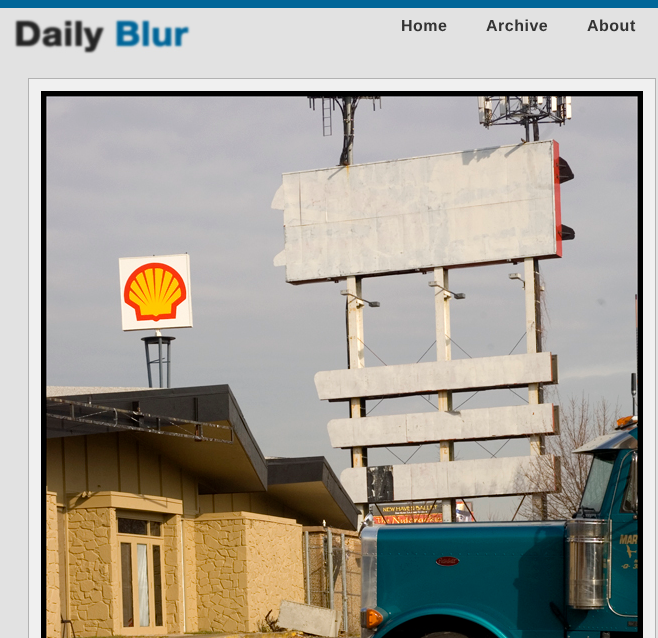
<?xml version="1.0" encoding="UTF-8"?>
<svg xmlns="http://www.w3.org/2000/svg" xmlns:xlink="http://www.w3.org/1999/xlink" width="658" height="638">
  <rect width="100%" height="100%" fill="#e2e2e2" />
  <rect width="658" height="8" fill="#006699" />
  <image x="14" y="19" width="177" height="35" xlink:href="image1.png" />
  <rect x="28.5" y="78.5" width="627" height="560" fill="#f0f0f0" stroke="#b2b2b2" />
  <image x="41" y="91" width="602" height="547" xlink:href="image2.png" />
  <text x="401" y="31" style="font-family: Liberation Sans; font-size: 16px; font-weight: bold; letter-spacing: 0.5px; fill: #333333">Home</text>
  <text x="486" y="31" style="font-family: Liberation Sans; font-size: 16px; font-weight: bold; letter-spacing: 0.5px; fill: #333333">Archive</text>
  <text x="587" y="31" style="font-family: Liberation Sans; font-size: 16px; font-weight: bold; letter-spacing: 0.5px; fill: #333333">About</text>
</svg>
